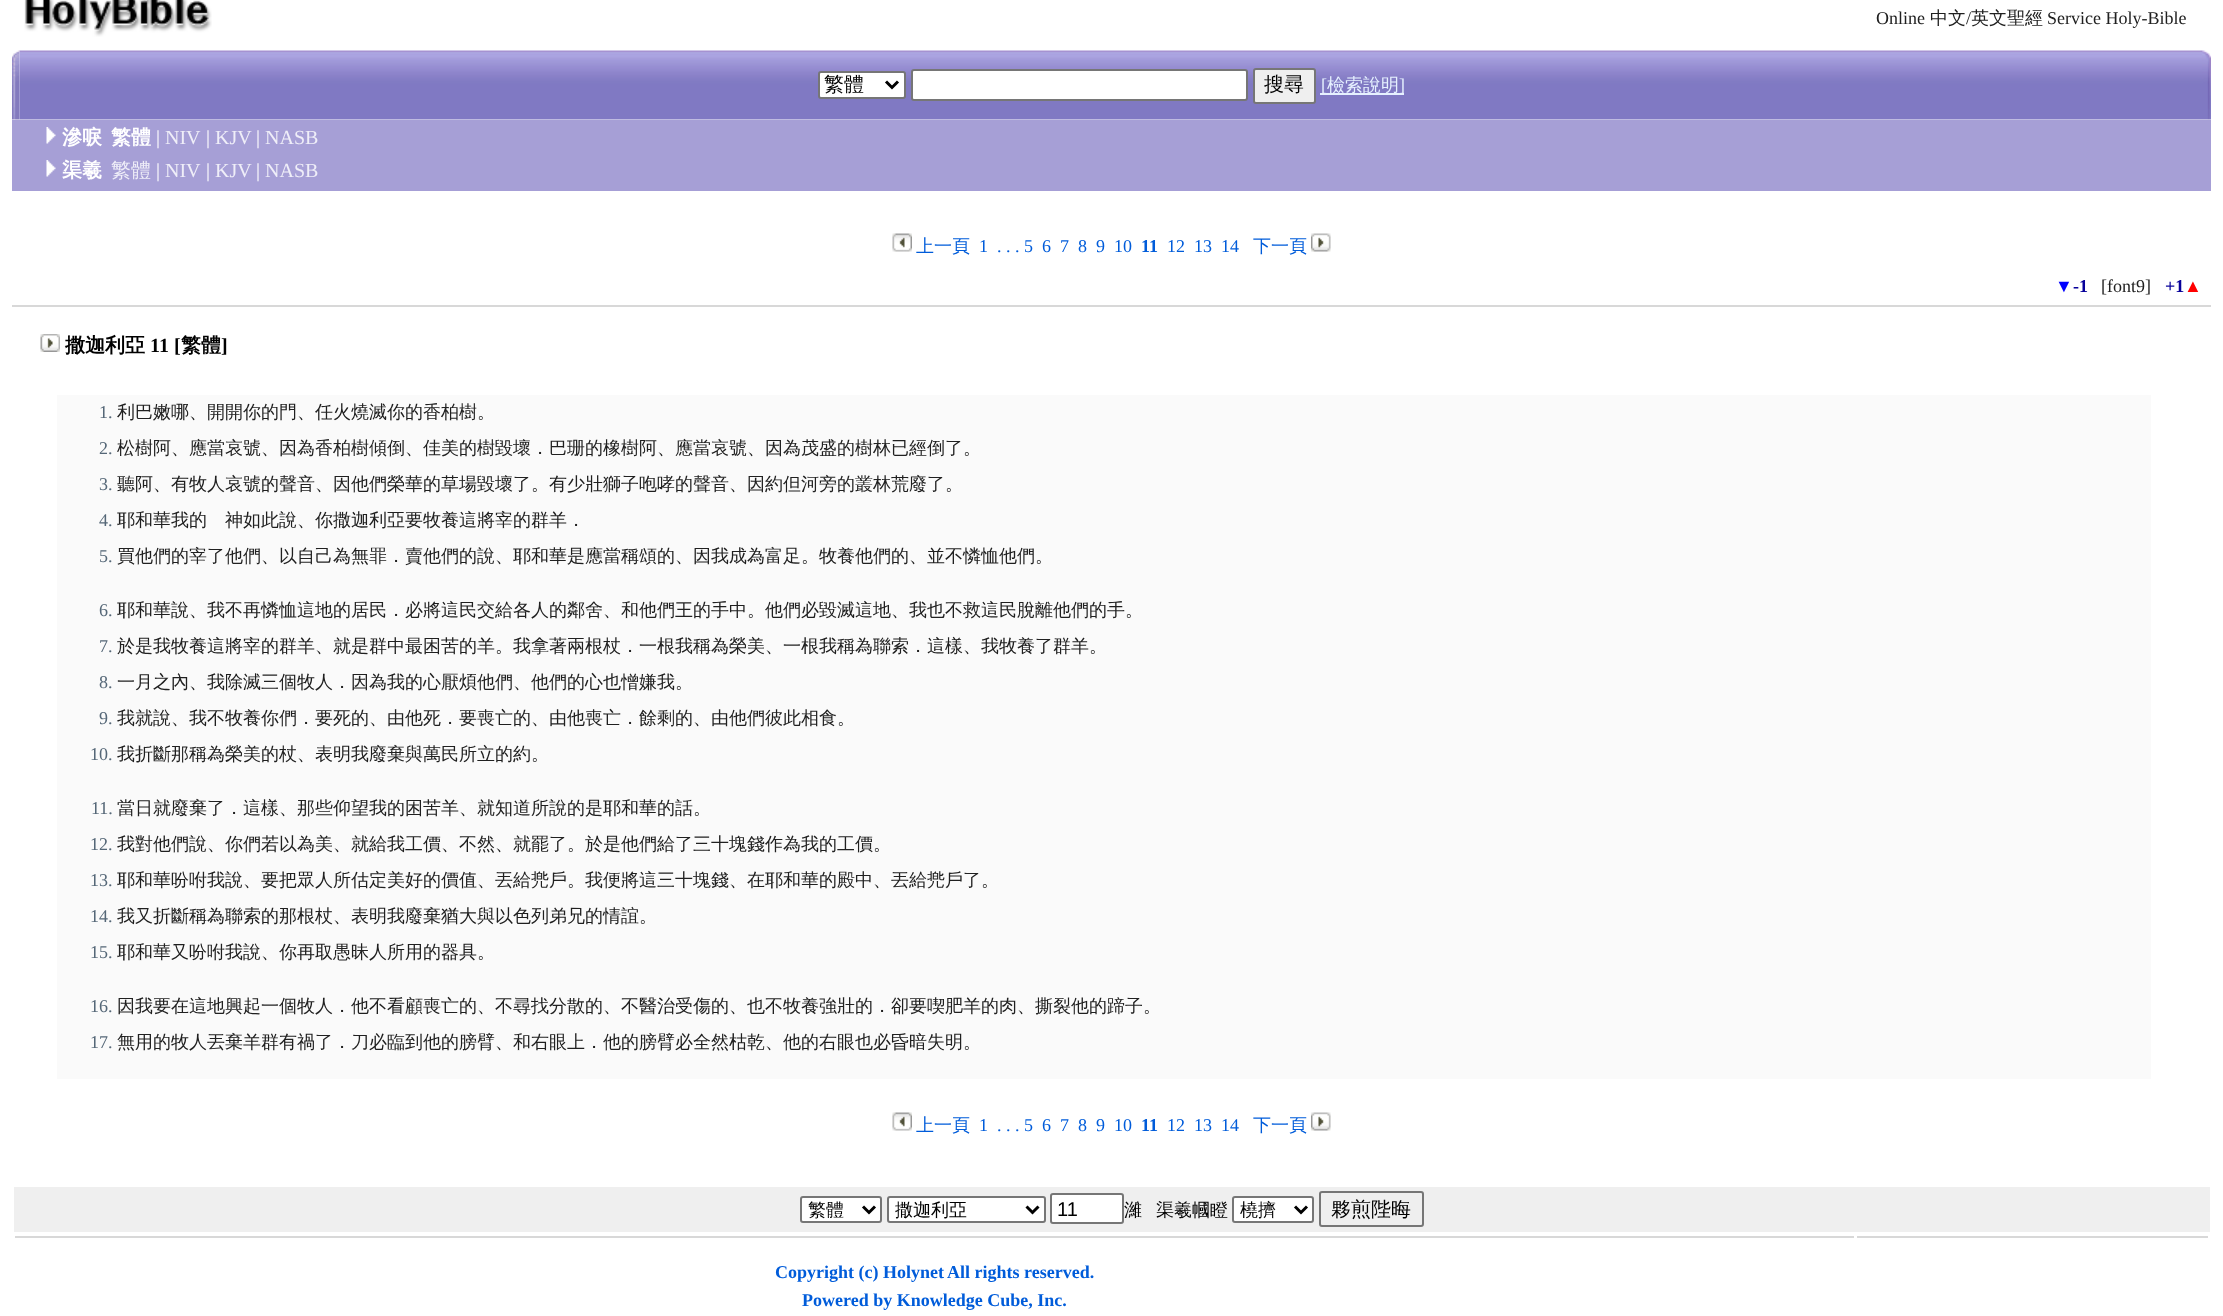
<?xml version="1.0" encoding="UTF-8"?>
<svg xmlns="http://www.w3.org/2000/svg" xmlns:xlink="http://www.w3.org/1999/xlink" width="2223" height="1316">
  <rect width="100%" height="100%" fill="#ffffff" />
  <image x="24" y="0" width="188" height="37" xlink:href="image1.png" />
  <image x="12" y="50" width="8" height="70" xlink:href="image2.png" />
  <image x="19" y="50" width="2183" height="70" xlink:href="image3.png" />
  <rect x="819" y="72" width="86" height="26" rx="2" fill="#ffffff" stroke="#767676" stroke-width="2" />
  <path d="M 886 81.5 l 6 6 l 6 -6" fill="none" stroke="#000000" stroke-width="3" />
  <rect x="912" y="70" width="335" height="30" rx="2" fill="#ffffff" stroke="#767676" stroke-width="2" />
  <rect x="1254" y="69" width="61" height="34" rx="2" fill="#efefef" stroke="#767676" stroke-width="2" />
  <rect x="1320" y="93" width="84" height="2" fill="#e6f1ff" />
  <image x="2202" y="50" width="9" height="70" xlink:href="image4.png" />
  <rect x="12" y="120" width="2199" height="71" fill="#a69fd6" />
  <image x="46" y="127" width="10" height="17" xlink:href="image5.png" />
  <image x="46" y="160" width="10" height="17" xlink:href="image5.png" />
  <image x="892" y="233" width="20" height="19" xlink:href="image6.png" />
  <image x="1311" y="233" width="20" height="19" xlink:href="image7.png" />
  <rect x="12" y="305" width="2199" height="2" fill="#d8d8d8" />
  <image x="40" y="334" width="20" height="18" xlink:href="image8.png" />
  <rect x="57" y="395" width="2094" height="684" fill="#fafafa" />
  <image x="892" y="1112" width="20" height="19" xlink:href="image6.png" />
  <image x="1311" y="1112" width="20" height="19" xlink:href="image7.png" />
  <rect x="14" y="1187" width="2196" height="45" fill="#efefef" />
  <rect x="801" y="1197" width="80" height="25" rx="2" fill="#ffffff" stroke="#767676" stroke-width="2" />
  <path d="M 863 1206.5 l 6 6 l 6 -6" fill="none" stroke="#000000" stroke-width="3" />
  <rect x="888" y="1197" width="157" height="25" rx="2" fill="#ffffff" stroke="#767676" stroke-width="2" />
  <path d="M 1026.5 1206.5 l 6 6 l 6 -6" fill="none" stroke="#000000" stroke-width="3" />
  <rect x="1051" y="1194" width="72" height="29" rx="2" fill="#ffffff" stroke="#767676" stroke-width="2" />
  <rect x="1233" y="1197" width="80" height="25" rx="2" fill="#ffffff" stroke="#767676" stroke-width="2" />
  <path d="M 1295 1206.5 l 6 6 l 6 -6" fill="none" stroke="#000000" stroke-width="3" />
  <rect x="1320" y="1192" width="103" height="34" rx="2" fill="none" stroke="#767676" stroke-width="2" />
  <rect x="15" y="1236" width="1839" height="2" fill="#d8d8d8" />
  <rect x="1857" y="1236" width="351" height="2" fill="#d8d8d8" />
  <text x="1876" y="24" style="font-family: Liberation Serif; font-size: 18px; fill: #202020">Online</text>
  <text x="1930" y="24" style="font-family: WenQuanYi Zen Hei; font-size: 18px; font-weight: 500; fill: #202020">中文</text>
  <text x="1966" y="24" style="font-family: Liberation Serif; font-size: 18px; fill: #202020">/</text>
  <text x="1971" y="24" style="font-family: WenQuanYi Zen Hei; font-size: 18px; font-weight: 500; fill: #202020">英文聖經</text>
  <text x="2047" y="24" style="font-family: Liberation Serif; font-size: 18px; fill: #202020">Service Holy-Bible</text>
  <text x="824" y="91" style="font-family: WenQuanYi Zen Hei; font-size: 20px; font-weight: 500; fill: #000000">繁體</text>
  <text x="1264" y="91" style="font-family: WenQuanYi Zen Hei; font-size: 20px; font-weight: 500; fill: #000000">搜尋</text>
  <text x="1321" y="91" style="font-family: Liberation Serif; font-size: 18px; fill: #e6f1ff">[</text>
  <text x="1327" y="91" style="font-family: WenQuanYi Zen Hei; font-size: 18px; font-weight: 500; fill: #e6f1ff">檢索說明</text>
  <text x="1399" y="91" style="font-family: Liberation Serif; font-size: 18px; fill: #e6f1ff">]</text>
  <text x="62" y="144" style="font-family: WenQuanYi Zen Hei; font-size: 20px; font-weight: bold; fill: #ffffff">滲唳</text>
  <text x="111" y="144" style="font-family: WenQuanYi Zen Hei; font-size: 20px; font-weight: bold; fill: #ffffff">繁體</text>
  <text x="156" y="144" style="font-family: Liberation Serif; font-size: 20px; fill: #ffffff">|</text>
  <text x="165" y="144" style="font-family: Liberation Serif; font-size: 20px; fill: #efeef8">NIV</text>
  <text x="206" y="144" style="font-family: Liberation Serif; font-size: 20px; fill: #ffffff">|</text>
  <text x="215" y="144" style="font-family: Liberation Serif; font-size: 20px; fill: #efeef8">KJV</text>
  <text x="256" y="144" style="font-family: Liberation Serif; font-size: 20px; fill: #ffffff">|</text>
  <text x="265" y="144" style="font-family: Liberation Serif; font-size: 20px; fill: #efeef8">NASB</text>
  <text x="62" y="177" style="font-family: WenQuanYi Zen Hei; font-size: 20px; font-weight: bold; fill: #ffffff">渠羲</text>
  <text x="111" y="177" style="font-family: WenQuanYi Zen Hei; font-size: 20px; font-weight: 500; fill: #efeef8">繁體</text>
  <text x="156" y="177" style="font-family: Liberation Serif; font-size: 20px; fill: #ffffff">|</text>
  <text x="165" y="177" style="font-family: Liberation Serif; font-size: 20px; fill: #efeef8">NIV</text>
  <text x="206" y="177" style="font-family: Liberation Serif; font-size: 20px; fill: #ffffff">|</text>
  <text x="215" y="177" style="font-family: Liberation Serif; font-size: 20px; fill: #efeef8">KJV</text>
  <text x="256" y="177" style="font-family: Liberation Serif; font-size: 20px; fill: #ffffff">|</text>
  <text x="265" y="177" style="font-family: Liberation Serif; font-size: 20px; fill: #efeef8">NASB</text>
  <text x="916" y="252" style="font-family: WenQuanYi Zen Hei; font-size: 18px; font-weight: 500; fill: #005cda">上一頁</text>
  <text x="979" y="252" style="font-family: Liberation Serif; font-size: 18px; fill: #005cda">1</text>
  <text x="997" y="252" style="font-family: Liberation Serif; font-size: 18px; fill: #005cda">. . . 5</text>
  <text x="1042" y="252" style="font-family: Liberation Serif; font-size: 18px; fill: #005cda">6</text>
  <text x="1060" y="252" style="font-family: Liberation Serif; font-size: 18px; fill: #005cda">7</text>
  <text x="1078" y="252" style="font-family: Liberation Serif; font-size: 18px; fill: #005cda">8</text>
  <text x="1096" y="252" style="font-family: Liberation Serif; font-size: 18px; fill: #005cda">9</text>
  <text x="1114" y="252" style="font-family: Liberation Serif; font-size: 18px; fill: #005cda">10</text>
  <text x="1141" y="252" style="font-family: Liberation Serif; font-size: 18px; font-weight: bold; fill: #005cda">11</text>
  <text x="1167" y="252" style="font-family: Liberation Serif; font-size: 18px; fill: #005cda">12</text>
  <text x="1194" y="252" style="font-family: Liberation Serif; font-size: 18px; fill: #005cda">13</text>
  <text x="1221" y="252" style="font-family: Liberation Serif; font-size: 18px; fill: #005cda">14</text>
  <text x="1253" y="252" style="font-family: WenQuanYi Zen Hei; font-size: 18px; font-weight: 500; fill: #005cda">下一頁</text>
  <text x="2055" y="292" style="font-family: Liberation Serif; font-size: 18px; font-weight: bold; fill: #0000ff">▼</text>
  <text x="2073" y="292" style="font-family: Liberation Serif; font-size: 18px; font-weight: bold; fill: #07009a">-1</text>
  <text x="2101" y="292" style="font-family: Liberation Serif; font-size: 18px; fill: #202020">[font9]</text>
  <text x="2165" y="292" style="font-family: Liberation Serif; font-size: 18px; font-weight: bold; fill: #07009a">+1</text>
  <text x="2184" y="292" style="font-family: Liberation Serif; font-size: 18px; font-weight: bold; fill: #ff0000">▲</text>
  <text x="65" y="352" style="font-family: WenQuanYi Zen Hei; font-size: 20px; font-weight: bold; fill: #000000">撒迦利亞</text>
  <text x="150" y="352" style="font-family: Liberation Serif; font-size: 20px; font-weight: bold; fill: #000000">11 [</text>
  <text x="181" y="352" style="font-family: WenQuanYi Zen Hei; font-size: 20px; font-weight: bold; fill: #000000">繁體</text>
  <text x="221" y="352" style="font-family: Liberation Serif; font-size: 20px; font-weight: bold; fill: #000000">]</text>
  <text x="99" y="418" style="font-family: Liberation Serif; font-size: 18px; fill: #556777">1.</text>
  <text x="117" y="418" style="font-family: WenQuanYi Zen Hei; font-size: 18px; font-weight: 500; fill: #202020">利巴嫩哪、開開你的門、任火燒滅你的香柏樹。</text>
  <text x="99" y="454" style="font-family: Liberation Serif; font-size: 18px; fill: #556777">2.</text>
  <text x="117" y="454" style="font-family: WenQuanYi Zen Hei; font-size: 18px; font-weight: 500; fill: #202020">松樹阿、應當哀號、因為香柏樹傾倒、佳美的樹毀壞．巴珊的橡樹阿、應當哀號、因為茂盛的樹林已經倒了。</text>
  <text x="99" y="490" style="font-family: Liberation Serif; font-size: 18px; fill: #556777">3.</text>
  <text x="117" y="490" style="font-family: WenQuanYi Zen Hei; font-size: 18px; font-weight: 500; fill: #202020">聽阿、有牧人哀號的聲音、因他們榮華的草場毀壞了。有少壯獅子咆哮的聲音、因約但河旁的叢林荒廢了。</text>
  <text x="99" y="526" style="font-family: Liberation Serif; font-size: 18px; fill: #556777">4.</text>
  <text x="117" y="526" style="font-family: WenQuanYi Zen Hei; font-size: 18px; font-weight: 500; fill: #202020">耶和華我的　神如此說、你撒迦利亞要牧養這將宰的群羊．</text>
  <text x="99" y="562" style="font-family: Liberation Serif; font-size: 18px; fill: #556777">5.</text>
  <text x="117" y="562" style="font-family: WenQuanYi Zen Hei; font-size: 18px; font-weight: 500; fill: #202020">買他們的宰了他們、以自己為無罪．賣他們的說、耶和華是應當稱頌的、因我成為富足。牧養他們的、並不憐恤他們。</text>
  <text x="99" y="616" style="font-family: Liberation Serif; font-size: 18px; fill: #556777">6.</text>
  <text x="117" y="616" style="font-family: WenQuanYi Zen Hei; font-size: 18px; font-weight: 500; fill: #202020">耶和華說、我不再憐恤這地的居民．必將這民交給各人的鄰舍、和他們王的手中。他們必毀滅這地、我也不救這民脫離他們的手。</text>
  <text x="99" y="652" style="font-family: Liberation Serif; font-size: 18px; fill: #556777">7.</text>
  <text x="117" y="652" style="font-family: WenQuanYi Zen Hei; font-size: 18px; font-weight: 500; fill: #202020">於是我牧養這將宰的群羊、就是群中最困苦的羊。我拿著兩根杖．一根我稱為榮美、一根我稱為聯索．這樣、我牧養了群羊。</text>
  <text x="99" y="688" style="font-family: Liberation Serif; font-size: 18px; fill: #556777">8.</text>
  <text x="117" y="688" style="font-family: WenQuanYi Zen Hei; font-size: 18px; font-weight: 500; fill: #202020">一月之內、我除滅三個牧人．因為我的心厭煩他們、他們的心也憎嫌我。</text>
  <text x="99" y="724" style="font-family: Liberation Serif; font-size: 18px; fill: #556777">9.</text>
  <text x="117" y="724" style="font-family: WenQuanYi Zen Hei; font-size: 18px; font-weight: 500; fill: #202020">我就說、我不牧養你們．要死的、由他死．要喪亡的、由他喪亡．餘剩的、由他們彼此相食。</text>
  <text x="90" y="760" style="font-family: Liberation Serif; font-size: 18px; fill: #556777">10.</text>
  <text x="117" y="760" style="font-family: WenQuanYi Zen Hei; font-size: 18px; font-weight: 500; fill: #202020">我折斷那稱為榮美的杖、表明我廢棄與萬民所立的約。</text>
  <text x="91" y="814" style="font-family: Liberation Serif; font-size: 18px; fill: #556777">11.</text>
  <text x="117" y="814" style="font-family: WenQuanYi Zen Hei; font-size: 18px; font-weight: 500; fill: #202020">當日就廢棄了．這樣、那些仰望我的困苦羊、就知道所說的是耶和華的話。</text>
  <text x="90" y="850" style="font-family: Liberation Serif; font-size: 18px; fill: #556777">12.</text>
  <text x="117" y="850" style="font-family: WenQuanYi Zen Hei; font-size: 18px; font-weight: 500; fill: #202020">我對他們說、你們若以為美、就給我工價、不然、就罷了。於是他們給了三十塊錢作為我的工價。</text>
  <text x="90" y="886" style="font-family: Liberation Serif; font-size: 18px; fill: #556777">13.</text>
  <text x="117" y="886" style="font-family: WenQuanYi Zen Hei; font-size: 18px; font-weight: 500; fill: #202020">耶和華吩咐我說、要把眾人所估定美好的價值、丟給兠戶。我便將這三十塊錢、在耶和華的殿中、丟給兠戶了。</text>
  <text x="90" y="922" style="font-family: Liberation Serif; font-size: 18px; fill: #556777">14.</text>
  <text x="117" y="922" style="font-family: WenQuanYi Zen Hei; font-size: 18px; font-weight: 500; fill: #202020">我又折斷稱為聯索的那根杖、表明我廢棄猶大與以色列弟兄的情誼。</text>
  <text x="90" y="958" style="font-family: Liberation Serif; font-size: 18px; fill: #556777">15.</text>
  <text x="117" y="958" style="font-family: WenQuanYi Zen Hei; font-size: 18px; font-weight: 500; fill: #202020">耶和華又吩咐我說、你再取愚昧人所用的器具。</text>
  <text x="90" y="1012" style="font-family: Liberation Serif; font-size: 18px; fill: #556777">16.</text>
  <text x="117" y="1012" style="font-family: WenQuanYi Zen Hei; font-size: 18px; font-weight: 500; fill: #202020">因我要在這地興起一個牧人．他不看顧喪亡的、不尋找分散的、不醫治受傷的、也不牧養強壯的．卻要喫肥羊的肉、撕裂他的蹄子。</text>
  <text x="90" y="1048" style="font-family: Liberation Serif; font-size: 18px; fill: #556777">17.</text>
  <text x="117" y="1048" style="font-family: WenQuanYi Zen Hei; font-size: 18px; font-weight: 500; fill: #202020">無用的牧人丟棄羊群有禍了．刀必臨到他的膀臂、和右眼上．他的膀臂必全然枯乾、他的右眼也必昏暗失明。</text>
  <text x="916" y="1131" style="font-family: WenQuanYi Zen Hei; font-size: 18px; font-weight: 500; fill: #005cda">上一頁</text>
  <text x="979" y="1131" style="font-family: Liberation Serif; font-size: 18px; fill: #005cda">1</text>
  <text x="997" y="1131" style="font-family: Liberation Serif; font-size: 18px; fill: #005cda">. . . 5</text>
  <text x="1042" y="1131" style="font-family: Liberation Serif; font-size: 18px; fill: #005cda">6</text>
  <text x="1060" y="1131" style="font-family: Liberation Serif; font-size: 18px; fill: #005cda">7</text>
  <text x="1078" y="1131" style="font-family: Liberation Serif; font-size: 18px; fill: #005cda">8</text>
  <text x="1096" y="1131" style="font-family: Liberation Serif; font-size: 18px; fill: #005cda">9</text>
  <text x="1114" y="1131" style="font-family: Liberation Serif; font-size: 18px; fill: #005cda">10</text>
  <text x="1141" y="1131" style="font-family: Liberation Serif; font-size: 18px; font-weight: bold; fill: #005cda">11</text>
  <text x="1167" y="1131" style="font-family: Liberation Serif; font-size: 18px; fill: #005cda">12</text>
  <text x="1194" y="1131" style="font-family: Liberation Serif; font-size: 18px; fill: #005cda">13</text>
  <text x="1221" y="1131" style="font-family: Liberation Serif; font-size: 18px; fill: #005cda">14</text>
  <text x="1253" y="1131" style="font-family: WenQuanYi Zen Hei; font-size: 18px; font-weight: 500; fill: #005cda">下一頁</text>
  <text x="808" y="1216" style="font-family: WenQuanYi Zen Hei; font-size: 18px; font-weight: 500; fill: #000000">繁體</text>
  <text x="895" y="1216" style="font-family: WenQuanYi Zen Hei; font-size: 18px; font-weight: 500; fill: #000000">撒迦利亞</text>
  <text x="1057" y="1216" style="font-family: Liberation Sans; font-size: 20px; fill: #000000">11</text>
  <text x="1124" y="1216" style="font-family: WenQuanYi Zen Hei; font-size: 18px; font-weight: 500; fill: #000000">濰</text>
  <text x="1156" y="1216" style="font-family: WenQuanYi Zen Hei; font-size: 18px; font-weight: 500; fill: #000000">渠羲幗瞪</text>
  <text x="1240" y="1216" style="font-family: WenQuanYi Zen Hei; font-size: 18px; font-weight: 500; fill: #000000">橈擠</text>
  <text x="1331" y="1216" style="font-family: WenQuanYi Zen Hei; font-size: 20px; font-weight: 500; fill: #000000">夥煎陛晦</text>
  <text x="775" y="1278" style="font-family: Liberation Serif; font-size: 18px; font-weight: bold; fill: #005cda">Copyright (c) Holynet</text>
  <text x="947" y="1278" style="font-family: Liberation Serif; font-size: 18px; font-weight: bold; fill: #005cda">All rights reserved.</text>
  <text x="802" y="1306" style="font-family: Liberation Serif; font-size: 18px; font-weight: bold; fill: #005cda">Powered by Knowledge Cube, Inc.</text>
</svg>
